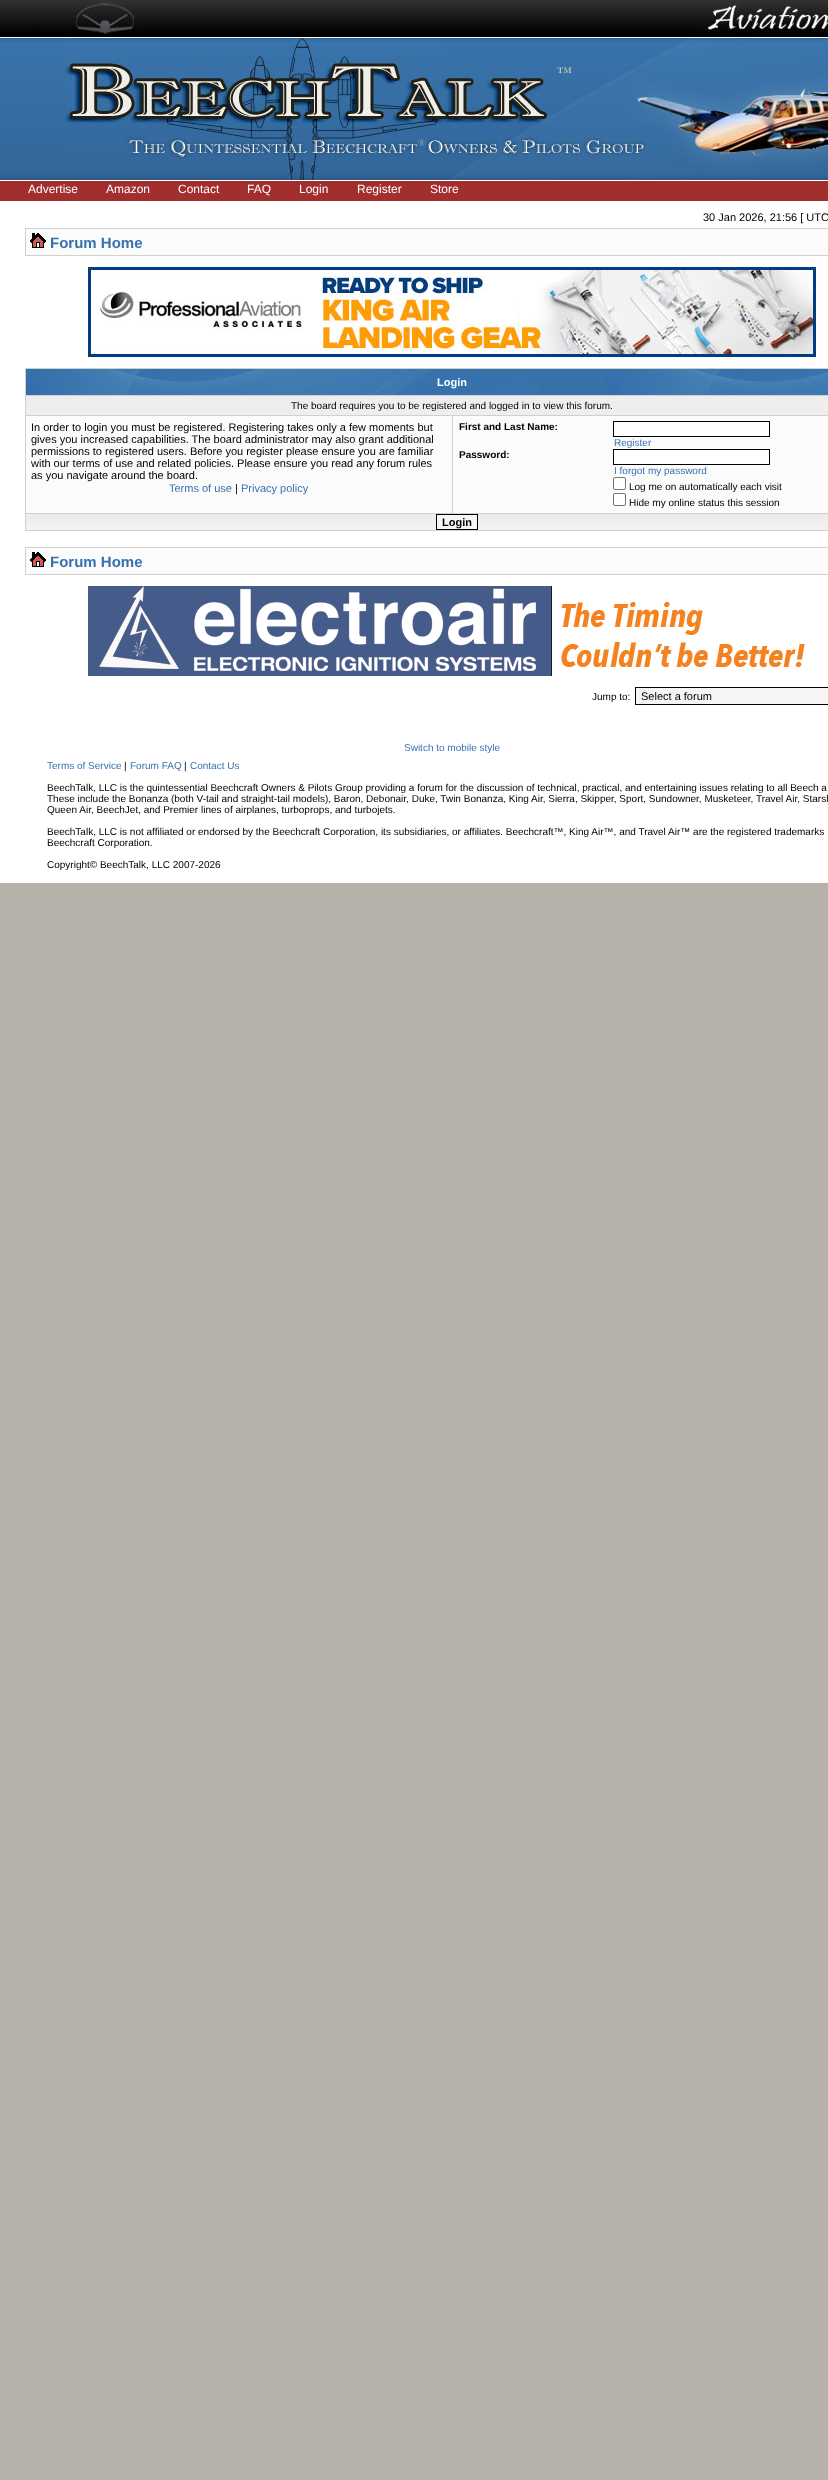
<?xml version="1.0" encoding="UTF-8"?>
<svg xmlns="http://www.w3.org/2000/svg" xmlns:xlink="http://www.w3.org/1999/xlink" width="828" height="2480">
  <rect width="100%" height="100%" fill="#ffffff" />
  <rect y="32" width="75" height="5" fill="#000000" />
  <image x="0" y="0" width="75" height="32" xlink:href="image1.png" />
  <image x="75" y="0" width="753" height="37" xlink:href="image2.png" />
  <image x="0" y="38" width="65" height="142" xlink:href="image3.png" />
  <image x="65" y="38" width="763" height="142" xlink:href="image4.png" />
  <rect y="181" width="828" height="20" fill="#a22e2e" />
  <rect y="883" width="828" height="1597" fill="#b6b2a9" />
  <rect x="25" y="228" width="803" height="28" fill="#d0d0d0" />
  <rect x="26" y="229" width="802" height="26" fill="#fbfbfb" />
  <image x="30" y="233" width="16" height="15" xlink:href="image5.png" />
  <image x="88" y="267" width="728" height="90" xlink:href="image6.png" />
  <rect x="25" y="368" width="803" height="163" fill="#d0d0d0" />
  <image x="26" y="369" width="802" height="26" xlink:href="image7.png" />
  <rect x="26" y="396" width="802" height="19" fill="#eeeeee" />
  <rect x="26" y="416" width="426" height="97" fill="#fbfbfb" />
  <rect x="453" y="416" width="375" height="97" fill="#fbfbfb" />
  <rect x="613.5" y="421.5" width="156" height="15" fill="#ffffff" stroke="#000000" />
  <rect x="613.5" y="449.5" width="156" height="15" fill="#ffffff" stroke="#000000" />
  <rect x="613.5" y="477.5" width="12" height="12" rx="1.5" fill="#ffffff" stroke="#767676" />
  <rect x="613.5" y="493.5" width="12" height="12" rx="1.5" fill="#ffffff" stroke="#767676" />
  <image x="26" y="514" width="802" height="16" xlink:href="image8.png" />
  <rect x="436.5" y="514.5" width="41" height="15" fill="#f5f5f5" stroke="#000000" />
  <rect x="25" y="547" width="803" height="28" fill="#d0d0d0" />
  <rect x="26" y="548" width="802" height="26" fill="#fbfbfb" />
  <image x="30" y="552" width="16" height="15" xlink:href="image5.png" />
  <image x="88" y="586" width="717" height="90" xlink:href="image9.png" />
  <rect x="635.5" y="687.5" width="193" height="17" fill="#f5f5f5" stroke="#000000" />
  <text x="28" y="193" style="font-family: Liberation Sans; font-size: 12px; fill: #ffffff">Advertise</text>
  <text x="106" y="193" style="font-family: Liberation Sans; font-size: 12px; fill: #ffffff">Amazon</text>
  <text x="178" y="193" style="font-family: Liberation Sans; font-size: 12px; fill: #ffffff">Contact</text>
  <text x="247" y="193" style="font-family: Liberation Sans; font-size: 12px; fill: #ffffff">FAQ</text>
  <text x="299" y="193" style="font-family: Liberation Sans; font-size: 12px; fill: #ffffff">Login</text>
  <text x="357" y="193" style="font-family: Liberation Sans; font-size: 12px; fill: #ffffff">Register</text>
  <text x="430" y="193" style="font-family: Liberation Sans; font-size: 12px; fill: #ffffff">Store</text>
  <text x="703" y="221" style="font-family: Liberation Sans; font-size: 11px; fill: #000000">30 Jan 2026, 21:56 [ UTC</text>
  <text x="50" y="248" style="font-family: Liberation Sans; font-size: 15px; font-weight: bold; fill: #3772af">Forum Home</text>
  <text x="437" y="386" style="font-family: Liberation Sans; font-size: 11px; font-weight: bold; fill: #ffffff">Login</text>
  <text x="291" y="409" style="font-family: Liberation Sans; font-size: 10px; fill: #000000">The board requires you to be registered and logged in to view this forum.</text>
  <text x="31" y="431" style="font-family: Liberation Sans; font-size: 11px; fill: #000000">In order to login you must be registered. Registering takes only a few moments but</text>
  <text x="31" y="443" style="font-family: Liberation Sans; font-size: 11px; fill: #000000">gives you increased capabilities. The board administrator may also grant additional</text>
  <text x="31" y="455" style="font-family: Liberation Sans; font-size: 11px; fill: #000000">permissions to registered users. Before you register please ensure you are familiar</text>
  <text x="31" y="467" style="font-family: Liberation Sans; font-size: 11px; fill: #000000">with our terms of use and related policies. Please ensure you read any forum rules</text>
  <text x="31" y="479" style="font-family: Liberation Sans; font-size: 11px; fill: #000000">as you navigate around the board.</text>
  <text x="169" y="492" style="font-family: Liberation Sans; font-size: 11px; fill: #3772af">Terms of use</text>
  <text x="235" y="492" style="font-family: Liberation Sans; font-size: 11px; fill: #000000">|</text>
  <text x="241" y="492" style="font-family: Liberation Sans; font-size: 11px; fill: #3772af">Privacy policy</text>
  <text x="459" y="430" style="font-family: Liberation Sans; font-size: 10px; font-weight: bold; fill: #000000">First and Last Name:</text>
  <text x="614" y="446" style="font-family: Liberation Sans; font-size: 10px; fill: #3772af">Register</text>
  <text x="459" y="458" style="font-family: Liberation Sans; font-size: 10px; font-weight: bold; fill: #000000">Password:</text>
  <text x="614" y="474" style="font-family: Liberation Sans; font-size: 10px; fill: #3772af">I forgot my password</text>
  <text x="629" y="490" style="font-family: Liberation Sans; font-size: 10px; fill: #000000">Log me on automatically each visit</text>
  <text x="629" y="506" style="font-family: Liberation Sans; font-size: 10px; fill: #000000">Hide my online status this session</text>
  <text x="442" y="526" style="font-family: Liberation Sans; font-size: 11px; font-weight: bold; fill: #000000">Login</text>
  <text x="50" y="567" style="font-family: Liberation Sans; font-size: 15px; font-weight: bold; fill: #3772af">Forum Home</text>
  <text x="592" y="700" style="font-family: Liberation Sans; font-size: 10px; fill: #000000">Jump to:</text>
  <text x="641" y="700" style="font-family: Liberation Sans; font-size: 11px; fill: #000000">Select a forum</text>
  <text x="404" y="751" style="font-family: Liberation Sans; font-size: 10px; fill: #3772af">Switch to mobile style</text>
  <text x="47" y="769" style="font-family: Liberation Sans; font-size: 10px; fill: #3772af">Terms of Service</text>
  <text x="124" y="769" style="font-family: Liberation Sans; font-size: 10px; fill: #000000">|</text>
  <text x="130" y="769" style="font-family: Liberation Sans; font-size: 10px; fill: #3772af">Forum FAQ</text>
  <text x="184" y="769" style="font-family: Liberation Sans; font-size: 10px; fill: #000000">|</text>
  <text x="190" y="769" style="font-family: Liberation Sans; font-size: 10px; fill: #3772af">Contact Us</text>
  <text x="47" y="791" style="font-family: Liberation Sans; font-size: 10px; fill: #000000">BeechTalk, LLC is the quintessential Beechcraft Owners &amp; Pilots Group providing a forum for the discussion of technical, practical, and entertaining issues relating to all Beech a</text>
  <text x="47" y="802" style="font-family: Liberation Sans; font-size: 10px; fill: #000000">These include the Bonanza (both V-tail and straight-tail models), Baron, Debonair, Duke, Twin Bonanza, King Air, Sierra, Skipper, Sport, Sundowner, Musketeer, Travel Air, Starsh</text>
  <text x="47" y="813" style="font-family: Liberation Sans; font-size: 10px; fill: #000000">Queen Air, BeechJet, and Premier lines of airplanes, turboprops, and turbojets.</text>
  <text x="47" y="835" style="font-family: Liberation Sans; font-size: 10px; fill: #000000">BeechTalk, LLC is not affiliated or endorsed by the Beechcraft Corporation, its subsidiaries, or affiliates. Beechcraft™, King Air™, and Travel Air™ are the registered trademarks</text>
  <text x="47" y="846" style="font-family: Liberation Sans; font-size: 10px; fill: #000000">Beechcraft Corporation.</text>
  <text x="47" y="868" style="font-family: Liberation Sans; font-size: 10px; fill: #000000">Copyright© BeechTalk, LLC 2007-2026</text>
</svg>
